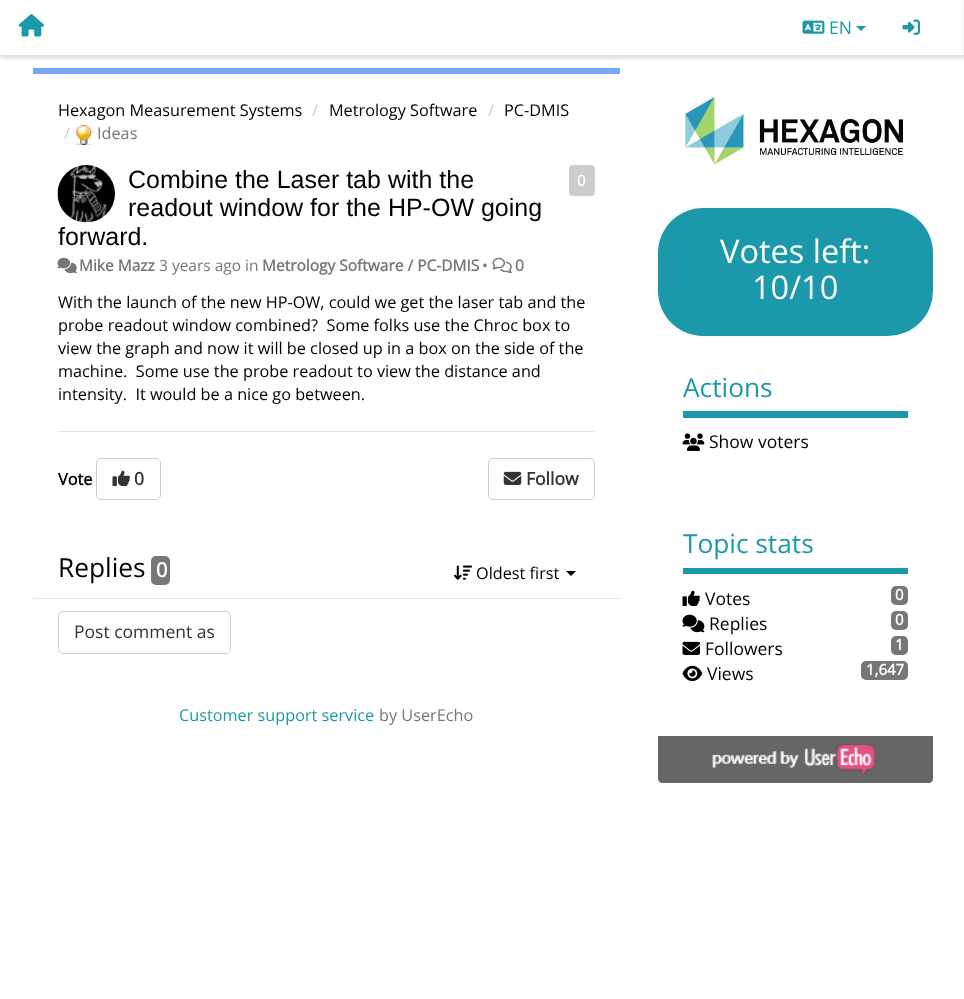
<?xml version="1.0" encoding="UTF-8"?>
<svg xmlns="http://www.w3.org/2000/svg" xmlns:xlink="http://www.w3.org/1999/xlink" width="964" height="999">
  <defs>
    <clipPath id="clip1"><rect x="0" y="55" width="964" height="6" /></clipPath>
  </defs>
  <rect width="100%" height="100%" fill="#ffffff" />
  <g clip-path="url(#clip1)">
    <rect y="3" width="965" height="55" fill="#000000" fill-opacity="0.15" filter="blur(2.5px)" />
  </g>
  <image x="18" y="14" width="26" height="23" xlink:href="image1.png" />
  <image x="802" y="20" width="23" height="14" xlink:href="image2.png" />
  <path d="M 856 26 h 10 l -5 5 z" fill="#1b98aa" />
  <image x="902" y="19" width="18" height="16" xlink:href="image3.png" />
  <rect x="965" y="3" width="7" height="55" fill="#000000" fill-opacity="0.15" filter="blur(2.5px)" />
  <rect x="33" y="68" width="587" height="6" fill="#76a7fa" />
  <image x="74" y="125" width="19" height="20" xlink:href="image4.png" />
  <image x="57" y="165" width="58" height="58" xlink:href="image5.png" />
  <rect x="569" y="165" width="26" height="31" rx="4" fill="#cccccc" />
  <image x="57" y="257" width="20" height="17" xlink:href="image6.png" />
  <image x="492" y="257" width="20" height="17" xlink:href="image7.png" />
  <rect x="58" y="431" width="537" height="1" fill="#e5e5e5" />
  <rect x="96.5" y="458.5" width="64" height="41" rx="4.5" fill="none" stroke="#cccccc" />
  <image x="112" y="470" width="18" height="17" xlink:href="image8.png" />
  <rect x="488.5" y="458.5" width="106" height="41" rx="4.5" fill="none" stroke="#cccccc" />
  <image x="503" y="471" width="19" height="14" xlink:href="image9.png" />
  <rect x="151" y="556" width="19" height="29" rx="5" fill="#777777" />
  <image x="454" y="565" width="18" height="15" xlink:href="image10.png" />
  <path d="M 566 571 h 10 l -5 5 z" fill="#000000" />
  <rect x="33" y="598" width="587" height="1" fill="#e1e8ed" />
  <rect x="58.5" y="611.5" width="172" height="42" rx="4.5" fill="none" stroke="#cccccc" />
  <image x="685" y="97" width="218" height="68" xlink:href="image11.png" />
  <rect x="658" y="208" width="275" height="128" rx="45" fill="#1b98aa" />
  <rect x="683" y="411" width="225" height="7" fill="#1b98aa" />
  <image x="682" y="433" width="23" height="18" xlink:href="image12.png" />
  <rect x="683" y="568" width="225" height="6" fill="#1b98aa" />
  <image x="682" y="590" width="18" height="17" xlink:href="image13.png" />
  <rect x="891" y="586" width="17" height="19" rx="5" fill="#777777" />
  <image x="682" y="614" width="23" height="19" xlink:href="image14.png" />
  <rect x="891" y="611" width="17" height="19" rx="5" fill="#777777" />
  <image x="682" y="641" width="18" height="14" xlink:href="image15.png" />
  <rect x="891" y="636" width="17" height="19" rx="5" fill="#777777" />
  <image x="682" y="665" width="21" height="17" xlink:href="image16.png" />
  <rect x="861" y="661" width="47" height="19" rx="5" fill="#777777" />
  <path d="M 658 736 h 275 v 43 c 0 2 -2 4 -4 4 h -267 c -2 0 -4 -2 -4 -4 z" fill="#666666" />
  <image x="712" y="743" width="164" height="32" xlink:href="image17.png" />
  <text x="829" y="34" style="font-family: Open Sans; font-size: 17.5px; fill: #1b98aa">EN</text>
  <text x="58" y="116" style="font-family: Open Sans; font-size: 16.25px; fill: #000000">Hexagon Measurement Systems</text>
  <text x="312" y="116" style="font-family: Open Sans; font-size: 16.25px; fill: #cccccc">/</text>
  <text x="329" y="116" style="font-family: Open Sans; font-size: 16.25px; fill: #000000">Metrology Software</text>
  <text x="488" y="116" style="font-family: Open Sans; font-size: 16.25px; fill: #cccccc">/</text>
  <text x="504" y="116" style="font-family: Open Sans; font-size: 16.25px; fill: #000000">PC-DMIS</text>
  <text x="64" y="139" style="font-family: Open Sans; font-size: 16.25px; fill: #cccccc">/</text>
  <text x="97" y="139" style="font-family: Open Sans; font-size: 16.25px; fill: #777777">Ideas</text>
  <text x="128" y="188" style="font-family: Liberation Sans; font-size: 25px; fill: #000000">Combine the Laser tab with the</text>
  <text x="128" y="216" style="font-family: Liberation Sans; font-size: 25px; fill: #000000">readout window for the HP-OW going</text>
  <text x="58" y="245" style="font-family: Liberation Sans; font-size: 25px; fill: #000000">forward.</text>
  <text x="577" y="186" style="font-family: Open Sans; font-size: 15px; font-weight: bold; fill: #ffffff">0</text>
  <text x="79" y="271" style="font-family: Open Sans; font-size: 15.5px; font-weight: bold; fill: #777777">Mike Mazz</text>
  <text x="159" y="271" style="font-family: Open Sans; font-size: 15.5px; fill: #777777">3 years ago in</text>
  <text x="262" y="271" style="font-family: Open Sans; font-size: 15.5px; font-weight: bold; fill: #777777">Metrology Software / PC-DMIS</text>
  <text x="482" y="271" style="font-family: Open Sans; font-size: 15.5px; fill: #777777">•</text>
  <text x="515" y="271" style="font-family: Open Sans; font-size: 15.5px; font-weight: bold; fill: #777777">0</text>
  <text x="58" y="308" style="font-family: Open Sans; font-size: 16.25px; fill: #000000">With the launch of the new HP-OW, could we get the laser tab and the</text>
  <text x="58" y="331" style="font-family: Open Sans; font-size: 16.25px; fill: #000000" xml:space="preserve">probe readout window combined?  Some folks use the Chroc box to</text>
  <text x="58" y="354" style="font-family: Open Sans; font-size: 16.25px; fill: #000000">view the graph and now it will be closed up in a box on the side of the</text>
  <text x="58" y="377" style="font-family: Open Sans; font-size: 16.25px; fill: #000000" xml:space="preserve">machine.  Some use the probe readout to view the distance and</text>
  <text x="58" y="400" style="font-family: Open Sans; font-size: 16.25px; fill: #000000" xml:space="preserve">intensity.  It would be a nice go between.</text>
  <text x="58" y="485" style="font-family: Open Sans; font-size: 16.25px; font-weight: bold; fill: #000000">Vote</text>
  <text x="134" y="485" style="font-family: Open Sans; font-size: 17.5px; font-weight: bold; fill: #333333">0</text>
  <text x="526" y="485" style="font-family: Open Sans; font-size: 17.5px; font-weight: bold; fill: #333333">Follow</text>
  <text x="58" y="577" style="font-family: Open Sans; font-size: 26.25px; fill: #000000">Replies</text>
  <text x="156" y="577" style="font-family: Open Sans; font-size: 20px; font-weight: bold; fill: #ffffff">0</text>
  <text x="476" y="579" style="font-family: Open Sans; font-size: 16.25px; fill: #000000">Oldest first</text>
  <text x="74" y="638" style="font-family: Open Sans; font-size: 17.5px; fill: #333333">Post comment as</text>
  <text x="179" y="721" style="font-family: Open Sans; font-size: 16.25px; fill: #1b98aa">Customer support service</text>
  <text x="379" y="721" style="font-family: Open Sans; font-size: 16.25px; fill: #777777">by UserEcho</text>
  <text x="720" y="263" style="font-family: Open Sans; font-size: 32.5px; fill: #ffffff">Votes left:</text>
  <text x="752" y="299" style="font-family: Open Sans; font-size: 32.5px; fill: #ffffff">10/10</text>
  <text x="683" y="397" style="font-family: Open Sans; font-size: 26.25px; fill: #1b98aa">Actions</text>
  <text x="709" y="448" style="font-family: Open Sans; font-size: 17.5px; fill: #000000">Show voters</text>
  <text x="683" y="553" style="font-family: Open Sans; font-size: 26.25px; fill: #1b98aa">Topic stats</text>
  <text x="705" y="605" style="font-family: Open Sans; font-size: 17.5px; fill: #000000">Votes</text>
  <text x="895" y="600" style="font-family: Open Sans; font-size: 15px; font-weight: bold; fill: #ffffff">0</text>
  <text x="709" y="630" style="font-family: Open Sans; font-size: 17.5px; fill: #000000">Replies</text>
  <text x="895" y="625" style="font-family: Open Sans; font-size: 15px; font-weight: bold; fill: #ffffff">0</text>
  <text x="705" y="655" style="font-family: Open Sans; font-size: 17.5px; fill: #000000">Followers</text>
  <text x="895" y="650" style="font-family: Open Sans; font-size: 15px; font-weight: bold; fill: #ffffff">1</text>
  <text x="707" y="680" style="font-family: Open Sans; font-size: 17.5px; fill: #000000">Views</text>
  <text x="866" y="675" style="font-family: Open Sans; font-size: 15px; font-weight: bold; fill: #ffffff">1,647</text>
</svg>
